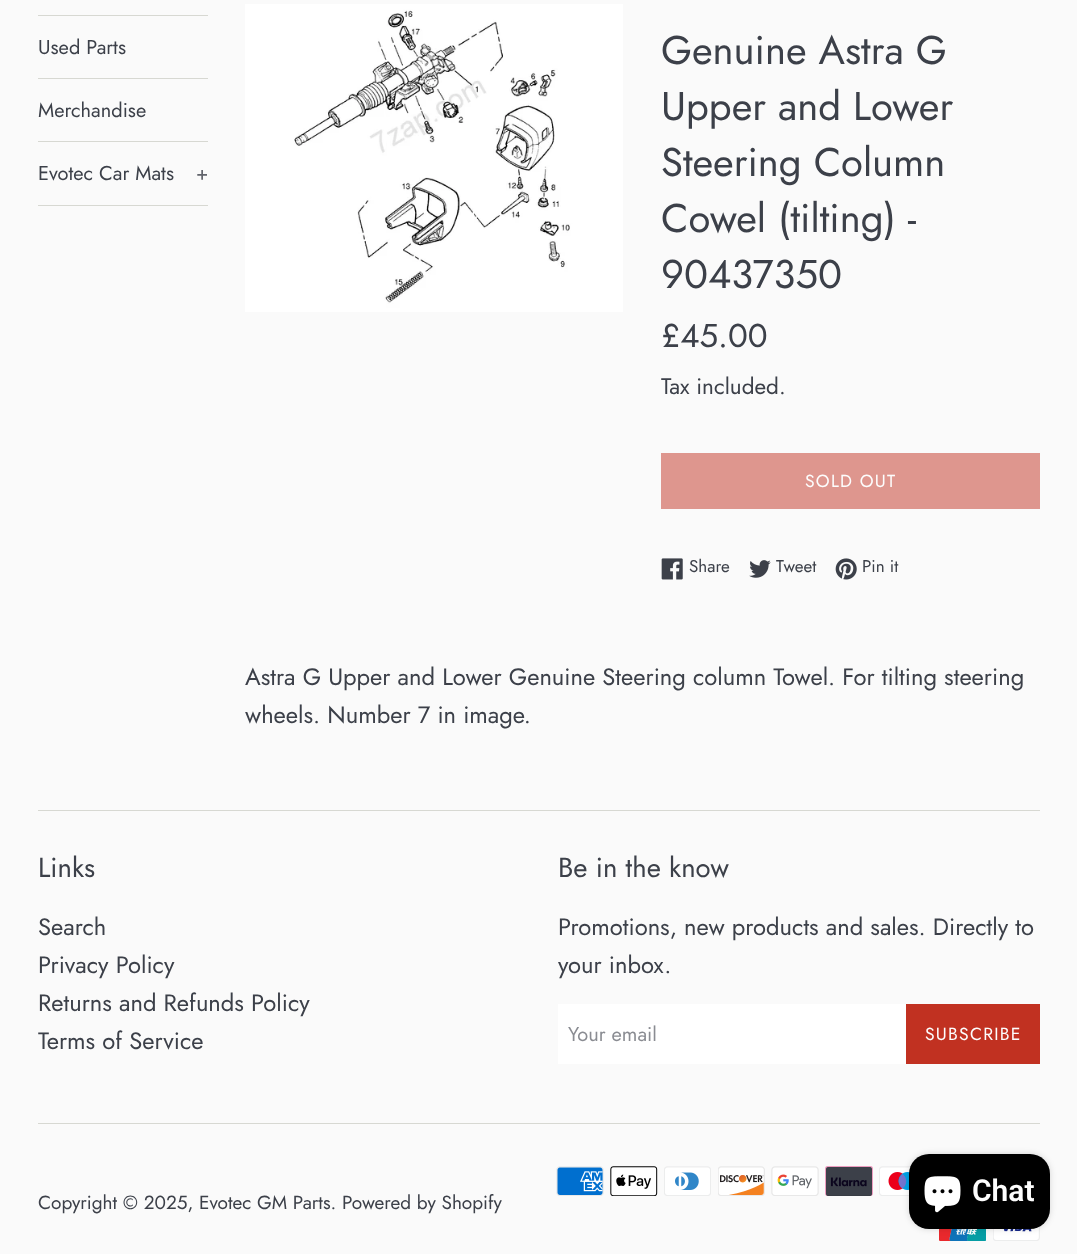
<?xml version="1.0" encoding="UTF-8"?>
<svg xmlns="http://www.w3.org/2000/svg" xmlns:xlink="http://www.w3.org/1999/xlink" width="1077" height="1254">
  <rect width="100%" height="100%" fill="#fafafa" />
  <rect x="38" y="15" width="170" height="1" fill="#d7d8d2" />
  <rect x="38" y="78" width="170" height="1" fill="#d7d8d2" />
  <rect x="38" y="141" width="170" height="1" fill="#d7d8d2" />
  <rect x="38" y="205" width="170" height="1" fill="#d7d8d2" />
  <image x="245" y="4" width="378" height="308" xlink:href="image1.png" />
  <rect x="661" y="453" width="379" height="56" fill="#de968e" />
  <image x="661" y="558" width="22" height="22" xlink:href="image2.png" />
  <image x="749" y="560" width="22" height="18" xlink:href="image3.png" />
  <image x="835" y="558" width="22" height="22" xlink:href="image4.png" />
  <rect x="38" y="810" width="1002" height="1" fill="#d7d8d2" />
  <rect x="558" y="1004" width="348" height="60" fill="#ffffff" />
  <rect x="906" y="1004" width="134" height="60" fill="#c13121" />
  <rect x="38" y="1123" width="1002" height="1" fill="#d7d8d2" />
  <image x="556" y="1166" width="48" height="30" xlink:href="image5.png" />
  <image x="610" y="1166" width="48" height="30" xlink:href="image6.png" />
  <image x="664" y="1166" width="47" height="30" xlink:href="image7.png" />
  <image x="718" y="1166" width="47" height="30" xlink:href="image8.png" />
  <image x="771" y="1166" width="48" height="30" xlink:href="image9.png" />
  <image x="825" y="1166" width="48" height="30" xlink:href="image10.png" />
  <image x="879" y="1166" width="32" height="30" xlink:href="image11.png" />
  <image x="939" y="1229" width="47" height="12" xlink:href="image12.png" />
  <image x="993" y="1226" width="47" height="15" xlink:href="image13.png" />
  <rect x="909" y="1154" width="141" height="75" rx="20" fill="#000000" fill-opacity="0.15" filter="blur(3px)" />
  <rect x="909" y="1154" width="141" height="75" rx="20" fill="#000000" />
  <image x="924" y="1176" width="37" height="37" xlink:href="image14.png" />
  <text x="38" y="54" style="font-family: Jost; font-size: 20px; fill: #3c4049">Used Parts</text>
  <text x="38" y="117" style="font-family: Jost; font-size: 20px; fill: #3c4049">Merchandise</text>
  <text x="38" y="180" style="font-family: Jost; font-size: 20px; fill: #3c4049">Evotec Car Mats</text>
  <text x="196" y="180" style="font-family: Jost; font-size: 20px; fill: #62656c">+</text>
  <text x="661" y="64" style="font-family: Jost; font-size: 40px; fill: #3c4049">Genuine Astra G</text>
  <text x="661" y="120" style="font-family: Jost; font-size: 40px; fill: #3c4049">Upper and Lower</text>
  <text x="661" y="176" style="font-family: Jost; font-size: 40px; fill: #3c4049">Steering Column</text>
  <text x="661" y="232" style="font-family: Jost; font-size: 40px; fill: #3c4049">Cowel (tilting) -</text>
  <text x="661" y="288" style="font-family: Jost; font-size: 40px; fill: #3c4049">90437350</text>
  <text x="661" y="347" style="font-family: Jost; font-size: 33px; fill: #3c4049">£45.00</text>
  <text x="661" y="394" style="font-family: Jost; font-size: 22.5px; fill: #3c4049">Tax included.</text>
  <text x="805" y="487" style="font-family: Jost; font-size: 17.5px; letter-spacing: 1.25px; fill: #fdfdfd">SOLD OUT</text>
  <text x="689" y="572" style="font-family: Jost; font-size: 17px; fill: #3c4049">Share</text>
  <text x="776" y="572" style="font-family: Jost; font-size: 17px; fill: #3c4049">Tweet</text>
  <text x="862" y="572" style="font-family: Jost; font-size: 17px; fill: #3c4049">Pin it</text>
  <text x="245" y="685" style="font-family: Jost; font-size: 23.75px; fill: #3c4049">Astra G Upper and Lower Genuine Steering column Towel. For tilting steering</text>
  <text x="245" y="723" style="font-family: Jost; font-size: 23.75px; fill: #3c4049">wheels. Number 7 in image.</text>
  <text x="38" y="877" style="font-family: Jost; font-size: 27.5px; fill: #3c4049">Links</text>
  <text x="38" y="935" style="font-family: Jost; font-size: 23.75px; fill: #3c4049">Search</text>
  <text x="38" y="973" style="font-family: Jost; font-size: 23.75px; fill: #3c4049">Privacy Policy</text>
  <text x="38" y="1011" style="font-family: Jost; font-size: 23.75px; fill: #3c4049">Returns and Refunds Policy</text>
  <text x="38" y="1049" style="font-family: Jost; font-size: 23.75px; fill: #3c4049">Terms of Service</text>
  <text x="558" y="877" style="font-family: Jost; font-size: 27.5px; fill: #3c4049">Be in the know</text>
  <text x="558" y="935" style="font-family: Jost; font-size: 23.75px; fill: #3c4049">Promotions, new products and sales. Directly to</text>
  <text x="558" y="973" style="font-family: Jost; font-size: 23.75px; fill: #3c4049">your inbox.</text>
  <text x="568" y="1041" style="font-family: Jost; font-size: 20px; fill: #8a8c92">Your email</text>
  <text x="925" y="1040" style="font-family: Jost; font-size: 17.5px; letter-spacing: 1.25px; fill: #fdfdfd">SUBSCRIBE</text>
  <text x="38" y="1209" style="font-family: Jost; font-size: 19px; fill: #3c4049">Copyright © 2025, Evotec GM Parts. Powered by Shopify</text>
  <text x="972" y="1201" style="font-family: Roboto; font-size: 30px; font-weight: 600; fill: #fdfdfd">Chat</text>
</svg>
